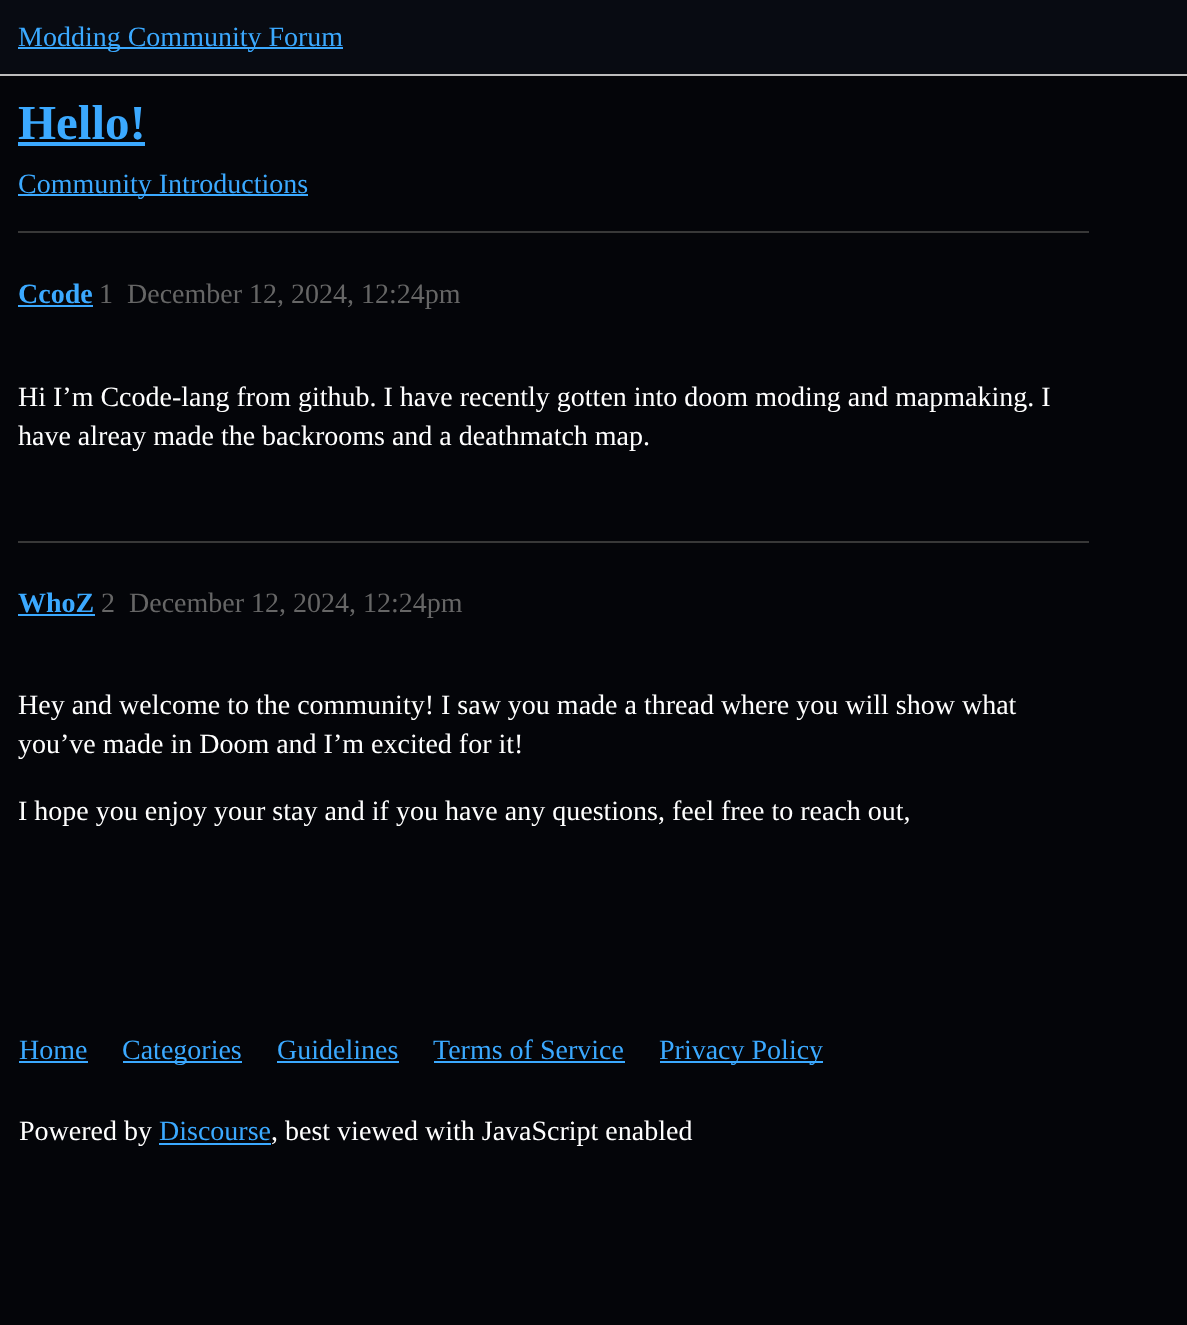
<?xml version="1.0" encoding="UTF-8"?>
<svg xmlns="http://www.w3.org/2000/svg" xmlns:xlink="http://www.w3.org/1999/xlink" width="1187" height="1325">
  <rect width="100%" height="100%" fill="#040509" />
  <rect width="1187" height="74" fill="#080b12" />
  <rect y="74" width="1187" height="2" fill="#bdbdbd" />
  <rect x="18" y="47" width="325" height="2" fill="#3ba9ff" />
  <rect x="18" y="142" width="127" height="4" fill="#3ba9ff" />
  <rect x="18" y="194" width="133" height="2" fill="#3ba9ff" />
  <rect x="151" y="194" width="157" height="2" fill="#3ba9ff" />
  <rect x="18" y="231" width="1071" height="2" fill="#383838" />
  <rect x="18" y="305" width="75" height="2" fill="#3ba9ff" />
  <rect x="18" y="541" width="1071" height="2" fill="#383838" />
  <rect x="18" y="614" width="77" height="2" fill="#3ba9ff" />
  <rect x="19" y="1061" width="69" height="2" fill="#3ba9ff" />
  <rect x="123" y="1061" width="119" height="2" fill="#3ba9ff" />
  <rect x="277" y="1061" width="122" height="2" fill="#3ba9ff" />
  <rect x="434" y="1061" width="191" height="2" fill="#3ba9ff" />
  <rect x="660" y="1061" width="163" height="2" fill="#3ba9ff" />
  <rect x="159" y="1143" width="112" height="2" fill="#3ba9ff" />
  <text x="18" y="46" style="font-family: Liberation Serif; font-size: 28px; fill: #3ba9ff">Modding Community Forum</text>
  <text x="18" y="139" style="font-family: Liberation Serif; font-size: 49px; font-weight: bold; fill: #3ba9ff">Hello!</text>
  <text x="18" y="193" style="font-family: Liberation Serif; font-size: 28px; fill: #3ba9ff">Community Introductions</text>
  <text x="18" y="303" style="font-family: Liberation Serif; font-size: 28px; font-weight: bold; fill: #3ba9ff">Ccode</text>
  <text x="99" y="303" style="font-family: Liberation Serif; font-size: 28px; fill: #666666">1</text>
  <text x="127" y="303" style="font-family: Liberation Serif; font-size: 28px; fill: #666666">December 12, 2024, 12:24pm</text>
  <text x="18" y="406" style="font-family: Liberation Serif; font-size: 28px; fill: #ffffff">Hi I’m Ccode-lang from github. I have recently gotten into doom moding and mapmaking. I</text>
  <text x="18" y="445" style="font-family: Liberation Serif; font-size: 28px; fill: #ffffff">have alreay made the backrooms and a deathmatch map.</text>
  <text x="18" y="612" style="font-family: Liberation Serif; font-size: 28px; font-weight: bold; fill: #3ba9ff">WhoZ</text>
  <text x="101" y="612" style="font-family: Liberation Serif; font-size: 28px; fill: #666666">2</text>
  <text x="129" y="612" style="font-family: Liberation Serif; font-size: 28px; fill: #666666">December 12, 2024, 12:24pm</text>
  <text x="18" y="714" style="font-family: Liberation Serif; font-size: 28px; fill: #ffffff">Hey and welcome to the community! I saw you made a thread where you will show what</text>
  <text x="18" y="753" style="font-family: Liberation Serif; font-size: 28px; fill: #ffffff">you’ve made in Doom and I’m excited for it!</text>
  <text x="18" y="820" style="font-family: Liberation Serif; font-size: 28px; fill: #ffffff">I hope you enjoy your stay and if you have any questions, feel free to reach out,</text>
  <text x="19" y="1059" style="font-family: Liberation Serif; font-size: 28px; fill: #3ba9ff">Home</text>
  <text x="122" y="1059" style="font-family: Liberation Serif; font-size: 28px; fill: #3ba9ff">Categories</text>
  <text x="277" y="1059" style="font-family: Liberation Serif; font-size: 28px; fill: #3ba9ff">Guidelines</text>
  <text x="433" y="1059" style="font-family: Liberation Serif; font-size: 28px; fill: #3ba9ff">Terms of Service</text>
  <text x="659" y="1059" style="font-family: Liberation Serif; font-size: 28px; fill: #3ba9ff">Privacy Policy</text>
  <text x="19" y="1140" style="font-family: Liberation Serif; font-size: 28px; fill: #ffffff">Powered by</text>
  <text x="159" y="1140" style="font-family: Liberation Serif; font-size: 28px; fill: #3ba9ff">Discourse</text>
  <text x="271" y="1140" style="font-family: Liberation Serif; font-size: 28px; fill: #ffffff">, best viewed with JavaScript enabled</text>
</svg>
